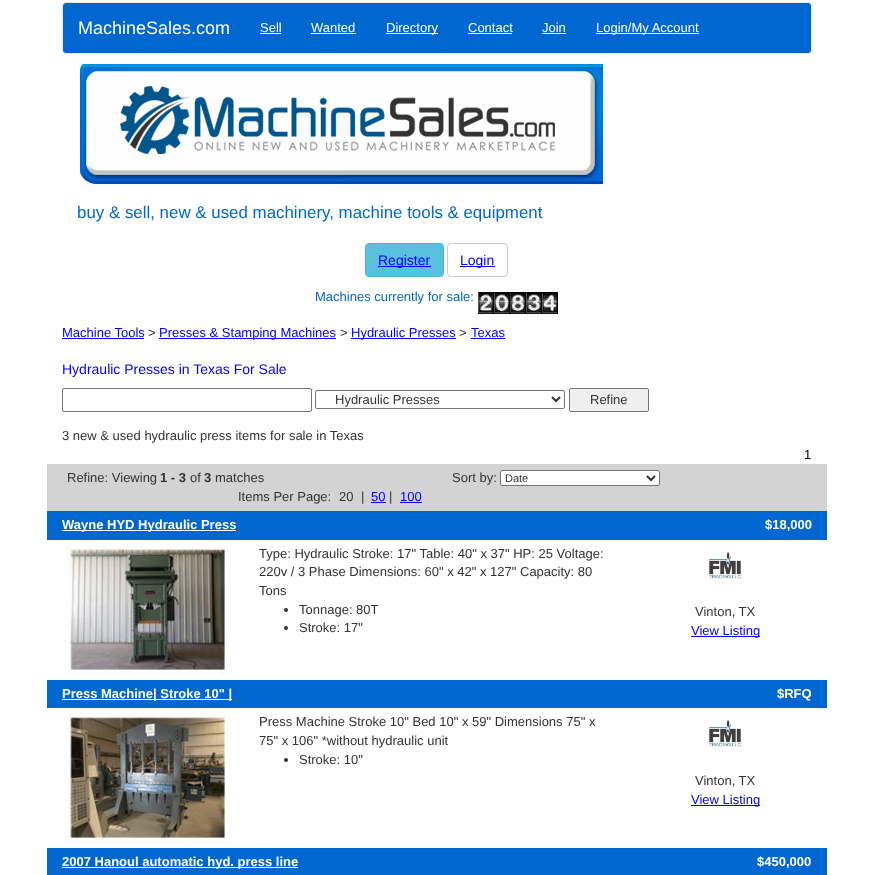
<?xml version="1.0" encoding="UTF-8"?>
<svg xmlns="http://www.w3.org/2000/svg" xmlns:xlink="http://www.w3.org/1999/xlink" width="873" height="875">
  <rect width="100%" height="100%" fill="#ffffff" />
  <rect x="62.5" y="2.5" width="749" height="51" rx="3.5" fill="#0067d1" stroke="#e7e7e7" />
  <rect x="260" y="33" width="21" height="1" fill="#ffffff" />
  <rect x="311" y="33" width="45" height="1" fill="#ffffff" />
  <rect x="386" y="33" width="52" height="1" fill="#ffffff" />
  <rect x="468" y="33" width="44" height="1" fill="#ffffff" />
  <rect x="542" y="33" width="24" height="1" fill="#ffffff" />
  <rect x="596" y="33" width="103" height="1" fill="#ffffff" />
  <image x="80" y="64" width="523" height="120" xlink:href="image1.png" />
  <rect x="365.5" y="243.5" width="78" height="33" rx="3.5" fill="#5bc0de" stroke="#46b8da" />
  <rect x="378" y="266" width="53" height="1" fill="#0000ff" />
  <rect x="447.5" y="243.5" width="60" height="33" rx="3.5" fill="none" stroke="#cccccc" />
  <rect x="460" y="266" width="35" height="1" fill="#0000ff" />
  <image x="478" y="292" width="80" height="22" xlink:href="image2.png" />
  <rect x="62" y="338" width="82" height="1" fill="#0000ff" />
  <rect x="159" y="338" width="177" height="1" fill="#0000ff" />
  <rect x="351" y="338" width="105" height="1" fill="#0000ff" />
  <rect x="471" y="338" width="34" height="1" fill="#0000ff" />
  <rect x="62.5" y="388.5" width="249" height="23" rx="1.5" fill="none" stroke="#767676" />
  <rect x="315.5" y="390.5" width="249" height="18" rx="1.5" fill="none" stroke="#767676" />
  <path d="M 552 397 l 4 4 l 4 -4" fill="none" stroke="#333333" stroke-width="2" />
  <rect x="569.5" y="388.5" width="79" height="23" rx="1.5" fill="#efefef" stroke="#767676" />
  <rect x="47" y="464" width="780" height="47" fill="#d3d3d3" />
  <rect x="500.5" y="470.5" width="159" height="15" rx="1.5" fill="#ffffff" stroke="#767676" />
  <path d="M 647 476 l 4 4 l 4 -4" fill="none" stroke="#333333" stroke-width="2" />
  <rect x="371" y="502" width="15" height="1" fill="#0000ff" />
  <rect x="400" y="502" width="22" height="1" fill="#0000ff" />
  <rect x="47" y="511" width="780" height="29" fill="#0067d1" />
  <rect x="62" y="530" width="174" height="1" fill="#ffffff" />
  <image x="67" y="545" width="159" height="130" xlink:href="image3.png" />
  <circle cx="286" cy="610" r="2" fill="#333333" />
  <circle cx="286" cy="628" r="2" fill="#333333" />
  <image x="709" y="552" width="34" height="28" xlink:href="image4.png" />
  <rect x="691" y="636" width="69" height="1" fill="#0000ff" />
  <rect x="47" y="680" width="780" height="28" fill="#0067d1" />
  <rect x="62" y="699" width="170" height="1" fill="#ffffff" />
  <image x="67" y="713" width="159" height="130" xlink:href="image5.png" />
  <circle cx="286" cy="760" r="2" fill="#333333" />
  <image x="709" y="720" width="34" height="28" xlink:href="image4.png" />
  <rect x="691" y="805" width="69" height="1" fill="#0000ff" />
  <rect x="47" y="848" width="780" height="27" fill="#0067d1" />
  <rect x="62" y="867" width="236" height="1" fill="#ffffff" />
  <text x="78" y="34" style="font-family: Liberation Sans; font-size: 18px; fill: #ffffff">MachineSales.com</text>
  <text x="260" y="32" style="font-family: Liberation Sans; font-size: 13px; fill: #ffffff">Sell</text>
  <text x="311" y="32" style="font-family: Liberation Sans; font-size: 13px; fill: #ffffff">Wanted</text>
  <text x="386" y="32" style="font-family: Liberation Sans; font-size: 13px; fill: #ffffff">Directory</text>
  <text x="468" y="32" style="font-family: Liberation Sans; font-size: 13px; fill: #ffffff">Contact</text>
  <text x="542" y="32" style="font-family: Liberation Sans; font-size: 13px; fill: #ffffff">Join</text>
  <text x="596" y="32" style="font-family: Liberation Sans; font-size: 13px; fill: #ffffff">Login/My Account</text>
  <text x="77" y="218" style="font-family: Liberation Sans; font-size: 16.9px; fill: #0067d1">buy &amp; sell, new &amp; used machinery, machine tools &amp; equipment</text>
  <text x="378" y="265" style="font-family: Liberation Sans; font-size: 14px; fill: #0000ff">Register</text>
  <text x="460" y="265" style="font-family: Liberation Sans; font-size: 14px; fill: #0000ff">Login</text>
  <text x="315" y="301" style="font-family: Liberation Sans; font-size: 13px; fill: #0067d1">Machines currently for sale:</text>
  <text x="62" y="337" style="font-family: Liberation Sans; font-size: 13px; fill: #0000ff">Machine Tools</text>
  <text x="148" y="337" style="font-family: Liberation Sans; font-size: 13px; fill: #333333">&gt;</text>
  <text x="159" y="337" style="font-family: Liberation Sans; font-size: 13px; fill: #0000ff">Presses &amp; Stamping Machines</text>
  <text x="340" y="337" style="font-family: Liberation Sans; font-size: 13px; fill: #333333">&gt;</text>
  <text x="351" y="337" style="font-family: Liberation Sans; font-size: 13px; fill: #0000ff">Hydraulic Presses</text>
  <text x="459" y="337" style="font-family: Liberation Sans; font-size: 13px; fill: #333333">&gt;</text>
  <text x="471" y="337" style="font-family: Liberation Sans; font-size: 13px; fill: #0000ff">Texas</text>
  <text x="62" y="374" style="font-family: Liberation Sans; font-size: 14px; fill: #0000ff">Hydraulic Presses in Texas For Sale</text>
  <text x="335" y="404" style="font-family: Liberation Sans; font-size: 13px; fill: #333333">Hydraulic Presses</text>
  <text x="590" y="404" style="font-family: Liberation Sans; font-size: 13px; fill: #333333">Refine</text>
  <text x="62" y="440" style="font-family: Liberation Sans; font-size: 13px; fill: #333333">3 new &amp; used hydraulic press items for sale in Texas</text>
  <text x="804" y="459" style="font-family: Liberation Sans; font-size: 13px; fill: #000000">1</text>
  <text x="67" y="482" style="font-family: Liberation Sans; font-size: 13px; fill: #333333">Refine: Viewing</text>
  <text x="160" y="482" style="font-family: Liberation Sans; font-size: 13px; font-weight: bold; fill: #333333">1 - 3</text>
  <text x="190" y="482" style="font-family: Liberation Sans; font-size: 13px; fill: #333333">of</text>
  <text x="204" y="482" style="font-family: Liberation Sans; font-size: 13px; font-weight: bold; fill: #333333">3</text>
  <text x="215" y="482" style="font-family: Liberation Sans; font-size: 13px; fill: #333333">matches</text>
  <text x="452" y="482" style="font-family: Liberation Sans; font-size: 13px; fill: #333333">Sort by:</text>
  <text x="505" y="482" style="font-family: Liberation Sans; font-size: 11px; fill: #333333">Date</text>
  <text x="238" y="501" style="font-family: Liberation Sans; font-size: 13px; fill: #333333">Items Per Page:</text>
  <text x="339" y="501" style="font-family: Liberation Sans; font-size: 13px; fill: #333333">20</text>
  <text x="361" y="501" style="font-family: Liberation Sans; font-size: 13px; fill: #333333">|</text>
  <text x="371" y="501" style="font-family: Liberation Sans; font-size: 13px; fill: #0000ff">50</text>
  <text x="389" y="501" style="font-family: Liberation Sans; font-size: 13px; fill: #333333">|</text>
  <text x="400" y="501" style="font-family: Liberation Sans; font-size: 13px; fill: #0000ff">100</text>
  <text x="62" y="529" style="font-family: Liberation Sans; font-size: 13px; font-weight: bold; fill: #ffffff">Wayne HYD Hydraulic Press</text>
  <text x="765" y="529" style="font-family: Liberation Sans; font-size: 13px; font-weight: bold; fill: #ffffff">$18,000</text>
  <text x="259" y="558" style="font-family: Liberation Sans; font-size: 13px; fill: #333333">Type: Hydraulic Stroke: 17" Table: 40" x 37" HP: 25 Voltage:</text>
  <text x="259" y="576" style="font-family: Liberation Sans; font-size: 13px; fill: #333333">220v / 3 Phase Dimensions: 60" x 42" x 127" Capacity: 80</text>
  <text x="259" y="595" style="font-family: Liberation Sans; font-size: 13px; fill: #333333">Tons</text>
  <text x="299" y="614" style="font-family: Liberation Sans; font-size: 13px; fill: #333333">Tonnage: 80T</text>
  <text x="299" y="632" style="font-family: Liberation Sans; font-size: 13px; fill: #333333">Stroke: 17"</text>
  <text x="695" y="616" style="font-family: Liberation Sans; font-size: 13px; fill: #333333">Vinton, TX</text>
  <text x="691" y="635" style="font-family: Liberation Sans; font-size: 13px; fill: #0000ff">View Listing</text>
  <text x="62" y="698" style="font-family: Liberation Sans; font-size: 13px; font-weight: bold; fill: #ffffff">Press Machine| Stroke 10" |</text>
  <text x="777" y="698" style="font-family: Liberation Sans; font-size: 13px; font-weight: bold; fill: #ffffff">$RFQ</text>
  <text x="259" y="726" style="font-family: Liberation Sans; font-size: 13px; fill: #333333">Press Machine Stroke 10" Bed 10" x 59" Dimensions 75" x</text>
  <text x="259" y="745" style="font-family: Liberation Sans; font-size: 13px; fill: #333333">75" x 106" *without hydraulic unit</text>
  <text x="299" y="764" style="font-family: Liberation Sans; font-size: 13px; fill: #333333">Stroke: 10"</text>
  <text x="695" y="785" style="font-family: Liberation Sans; font-size: 13px; fill: #333333">Vinton, TX</text>
  <text x="691" y="804" style="font-family: Liberation Sans; font-size: 13px; fill: #0000ff">View Listing</text>
  <text x="62" y="866" style="font-family: Liberation Sans; font-size: 13px; font-weight: bold; fill: #ffffff">2007 Hanoul automatic hyd. press line</text>
  <text x="757" y="866" style="font-family: Liberation Sans; font-size: 13px; font-weight: bold; fill: #ffffff">$450,000</text>
</svg>
